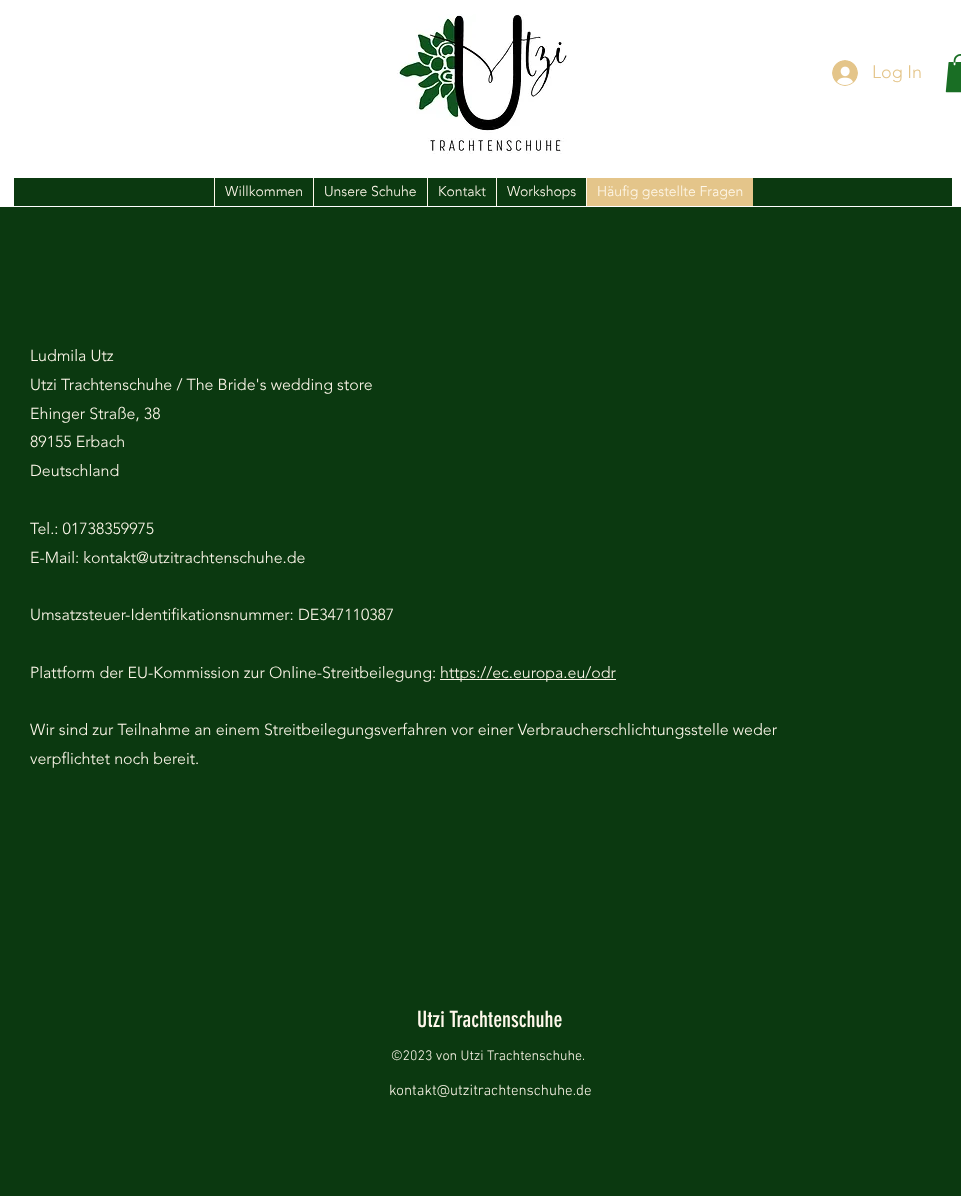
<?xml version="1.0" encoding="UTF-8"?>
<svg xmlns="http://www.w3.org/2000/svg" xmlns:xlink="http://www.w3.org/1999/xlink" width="961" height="1196">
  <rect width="100%" height="100%" fill="#0b3910" />
  <rect width="961" height="207" fill="#ffffff" />
  <image x="397" y="14" width="170" height="140" xlink:href="image1.png" />
  <image x="832" y="60" width="26" height="26" xlink:href="image2.png" />
  <image x="945" y="54" width="16" height="39" xlink:href="image3.png" />
  <rect x="14" y="178" width="938" height="28" fill="#0b3910" />
  <rect x="214" y="178" width="1" height="28" fill="#fff8eb" />
  <rect x="313" y="178" width="1" height="28" fill="#fff8eb" />
  <rect x="427" y="178" width="1" height="28" fill="#fff8eb" />
  <rect x="496" y="178" width="1" height="28" fill="#fff8eb" />
  <rect x="587" y="178" width="166" height="28" fill="#e4c58a" />
  <rect x="586" y="178" width="1" height="28" fill="#fff8eb" />
  <rect x="440" y="679" width="176" height="1" fill="#fff8eb" />
  <text x="872" y="78" style="font-family: 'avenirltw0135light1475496'; font-size: 18px; font-weight: 300; fill: #e4c58a">Log In</text>
  <text x="225" y="196" style="font-family: 'avenirltw0135light1475496'; font-size: 14px; font-weight: 300; fill: #fff8eb">Willkommen</text>
  <text x="324" y="196" style="font-family: 'avenirltw0135light1475496'; font-size: 14px; font-weight: 300; fill: #fff8eb">Unsere Schuhe</text>
  <text x="438" y="196" style="font-family: 'avenirltw0135light1475496'; font-size: 14px; font-weight: 300; fill: #fff8eb">Kontakt</text>
  <text x="507" y="196" style="font-family: 'avenirltw0135light1475496'; font-size: 14px; font-weight: 300; fill: #fff8eb">Workshops</text>
  <text x="597" y="196" style="font-family: 'avenirltw0135light1475496'; font-size: 14px; font-weight: 300; fill: #fff8eb">Häufig gestellte Fragen</text>
  <text x="30" y="361" style="font-family: 'avenirltw0135light1475496'; font-size: 16px; font-weight: 300; fill: #fff8eb">Ludmila Utz</text>
  <text x="30" y="390" style="font-family: 'avenirltw0135light1475496'; font-size: 16px; font-weight: 300; fill: #fff8eb">Utzi Trachtenschuhe / The Bride's wedding store</text>
  <text x="30" y="419" style="font-family: 'avenirltw0135light1475496'; font-size: 16px; font-weight: 300; fill: #fff8eb">Ehinger Straße, 38</text>
  <text x="30" y="447" style="font-family: 'avenirltw0135light1475496'; font-size: 16px; font-weight: 300; fill: #fff8eb">89155 Erbach</text>
  <text x="30" y="476" style="font-family: 'avenirltw0135light1475496'; font-size: 16px; font-weight: 300; fill: #fff8eb">Deutschland</text>
  <text x="30" y="534" style="font-family: 'avenirltw0135light1475496'; font-size: 16px; font-weight: 300; fill: #fff8eb">Tel.: 01738359975</text>
  <text x="30" y="563" style="font-family: 'avenirltw0135light1475496'; font-size: 16px; font-weight: 300; fill: #fff8eb">E-Mail: kontakt@utzitrachtenschuhe.de</text>
  <text x="30" y="620" style="font-family: 'avenirltw0135light1475496'; font-size: 16px; font-weight: 300; fill: #fff8eb">Umsatzsteuer-Identifikationsnummer: DE347110387</text>
  <text x="30" y="678" style="font-family: 'avenirltw0135light1475496'; font-size: 16px; font-weight: 300; fill: #fff8eb">Plattform der EU-Kommission zur Online-Streitbeilegung:</text>
  <text x="440" y="678" style="font-family: 'avenirltw0135light1475496'; font-size: 16px; font-weight: 300; fill: #fff8eb">https://ec.europa.eu/odr</text>
  <text x="30" y="735" style="font-family: 'avenirltw0135light1475496'; font-size: 16px; font-weight: 300; fill: #fff8eb">Wir sind zur Teilnahme an einem Streitbeilegungsverfahren vor einer Verbraucherschlichtungsstelle weder</text>
  <text x="30" y="764" style="font-family: 'avenirltw0135light1475496'; font-size: 16px; font-weight: 300; fill: #fff8eb">verpflichtet noch bereit.</text>
  <text x="417" y="1027" style="font-family: 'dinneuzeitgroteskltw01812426'; font-size: 22px; fill: #fff8eb">Utzi Trachtenschuhe</text>
  <text x="391" y="1060" style="font-family: 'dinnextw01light'; font-size: 14px; font-weight: 300; fill: #fff8eb">©2023 von Utzi Trachtenschuhe.</text>
  <text x="389" y="1095" style="font-family: 'dinnextw01light'; font-size: 15px; font-weight: 300; fill: #fff8eb">kontakt@utzitrachtenschuhe.de</text>
</svg>
